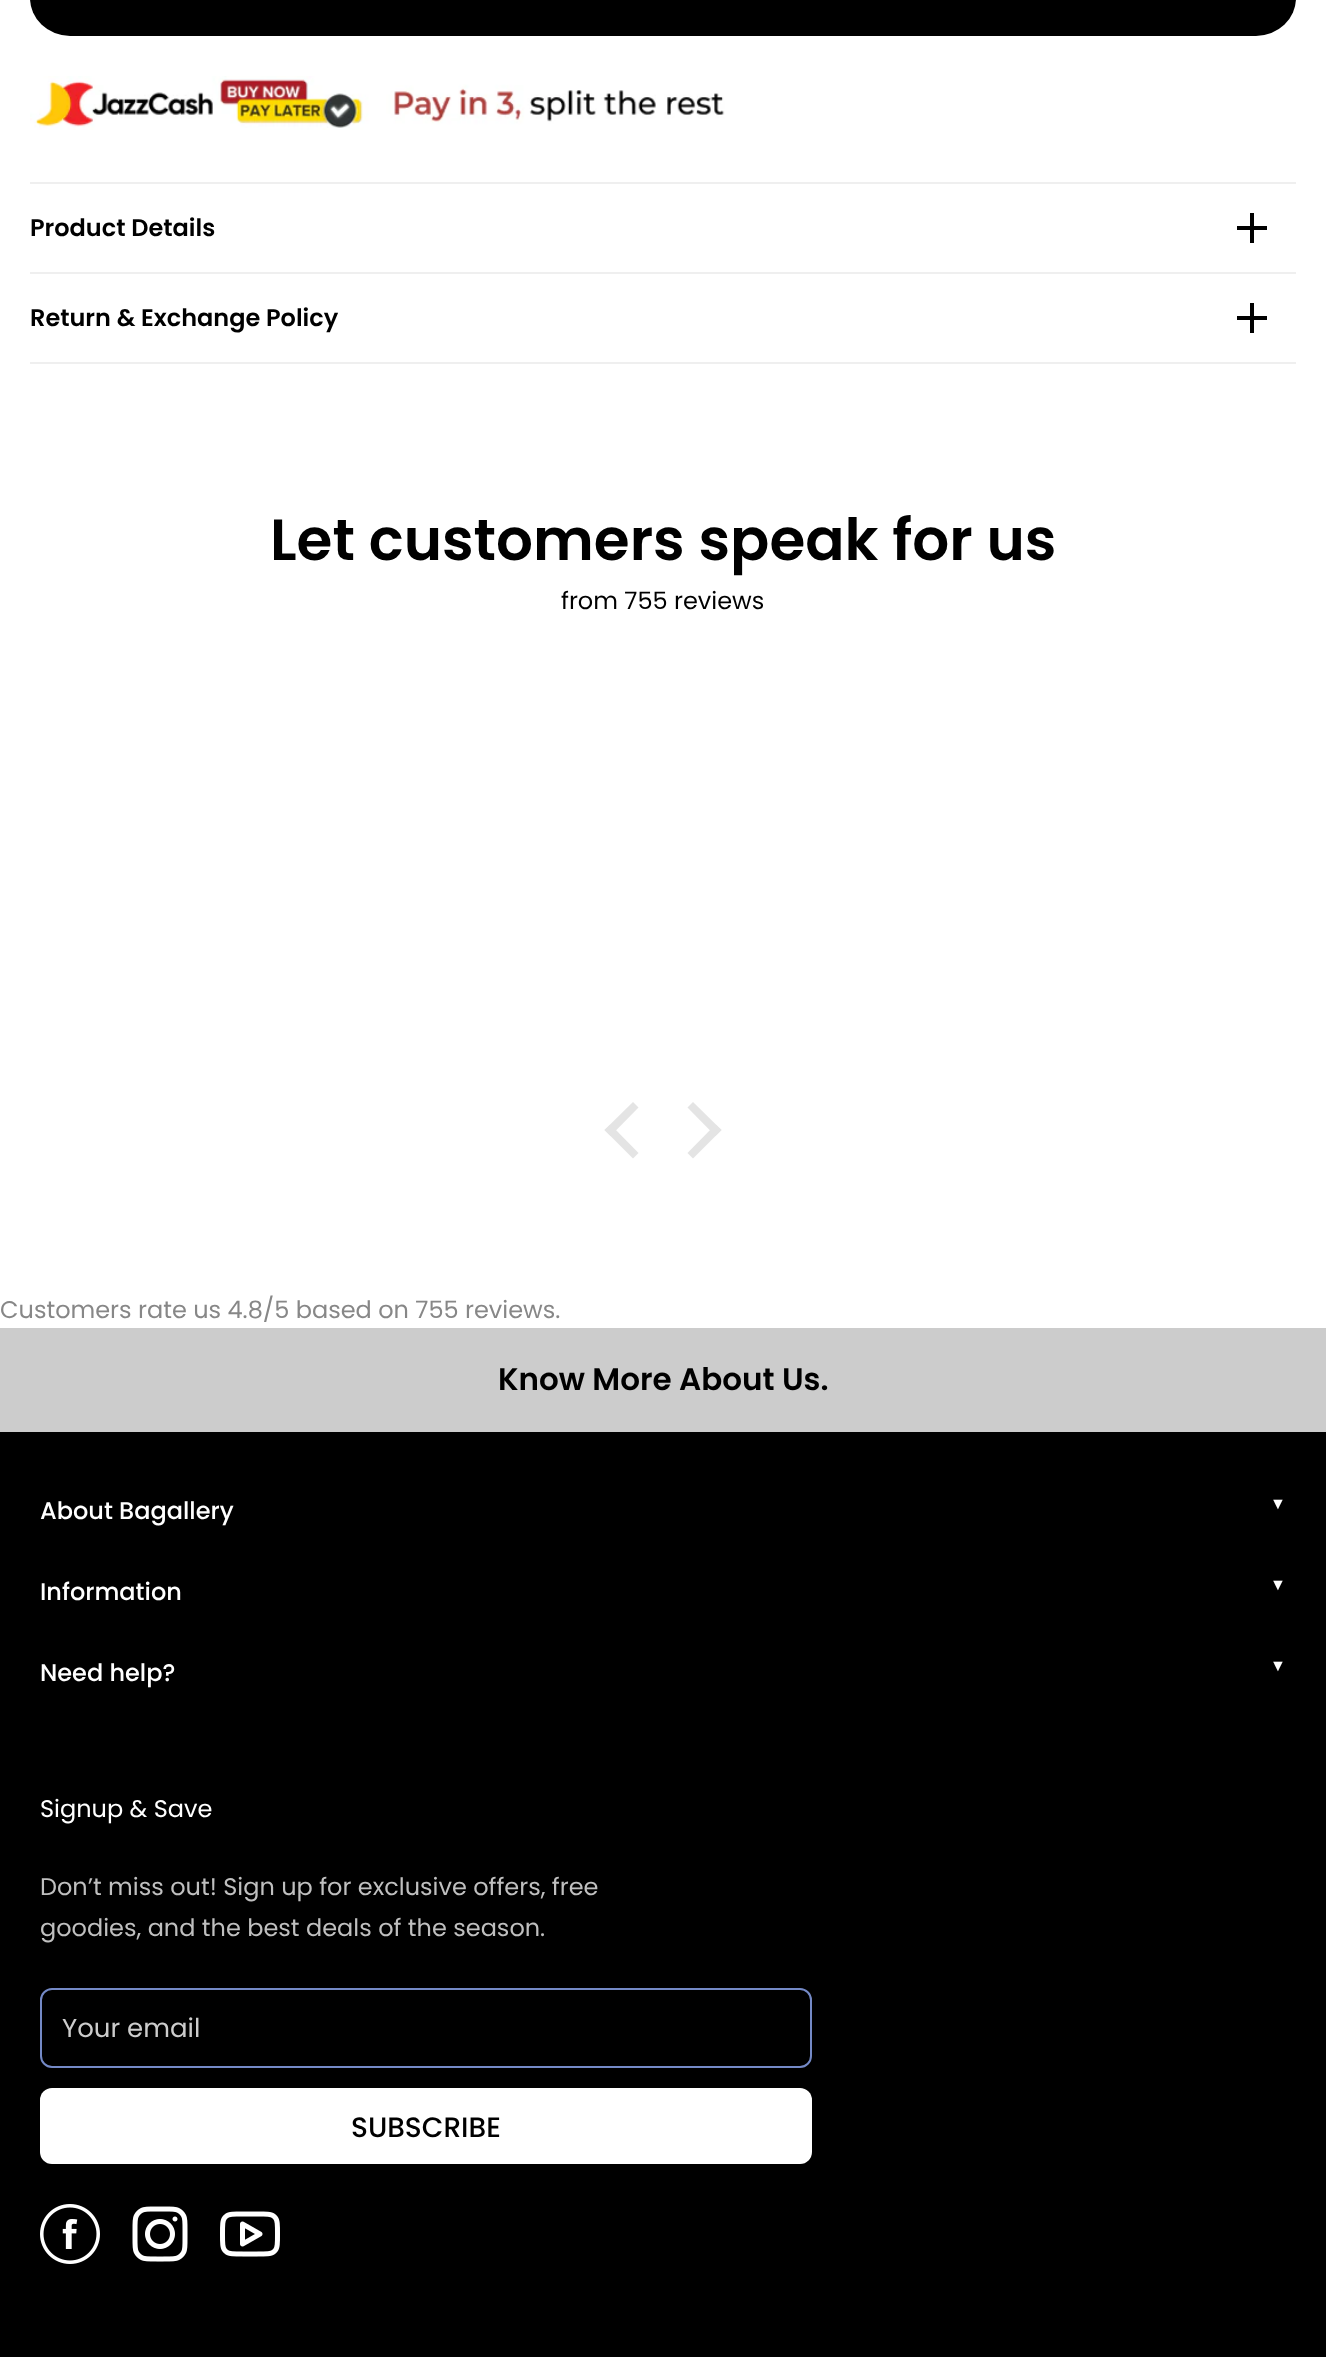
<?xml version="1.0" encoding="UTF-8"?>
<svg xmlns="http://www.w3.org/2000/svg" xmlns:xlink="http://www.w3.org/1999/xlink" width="1326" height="2357">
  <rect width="100%" height="100%" fill="#ffffff" />
  <rect x="30" y="-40" width="1266" height="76" rx="40" fill="#000000" />
  <image x="30" y="76" width="695" height="54" xlink:href="image1.png" />
  <rect x="30" y="182" width="1266" height="2" fill="#efefef" />
  <rect x="30" y="272" width="1266" height="2" fill="#efefef" />
  <rect x="1250" y="213" width="4" height="30" fill="#000000" />
  <rect x="1237" y="226" width="30" height="4" fill="#000000" />
  <rect x="30" y="362" width="1266" height="2" fill="#efefef" />
  <rect x="1250" y="303" width="4" height="30" fill="#000000" />
  <rect x="1237" y="316" width="30" height="4" fill="#000000" />
  <path d="M 604.5 1130 l 28.5 -28 l 5.5 5.5 l -28 28.5 z" fill="#e4e4e4" />
  <path d="M 604.5 1130 l 6 -5.5 l 28 28.5 l -5.5 5.5 z" fill="#e4e4e4" />
  <path d="M 687.5 1107.5 l 5.5 -5.5 l 28.5 28 l -6 6 z" fill="#e4e4e4" />
  <path d="M 687.5 1153 l 28 -28.5 l 6 5.5 l -28.5 28.5 z" fill="#e4e4e4" />
  <rect y="1328" width="1326" height="104" fill="#cccccc" />
  <rect y="1432" width="1326" height="925" fill="#000000" />
  <rect x="41" y="1989" width="770" height="78" rx="11" fill="none" stroke="#7489c6" stroke-width="2" />
  <rect x="40" y="2088" width="772" height="76" rx="12" fill="#ffffff" />
  <image x="40" y="2204" width="60" height="60" xlink:href="image2.png" />
  <image x="132" y="2206" width="56" height="56" xlink:href="image3.png" />
  <image x="220" y="2211" width="60" height="46" xlink:href="image4.png" />
  <text x="30" y="236" style="font-family: Poppins; font-size: 24px; font-weight: 600; fill: #000000">Product Details</text>
  <text x="30" y="326" style="font-family: Poppins; font-size: 24px; font-weight: 600; fill: #000000">Return &amp; Exchange Policy</text>
  <text x="270" y="560" style="font-family: Poppins; font-size: 58px; font-weight: 600; fill: #000000">Let customers speak for us</text>
  <text x="561" y="609" style="font-family: Poppins; font-size: 24px; fill: #000000">from 755 reviews</text>
  <text x="0" y="1318" style="font-family: Poppins; font-size: 24px; fill: #878787">Customers rate us 4.8/5 based on 755 reviews.</text>
  <text x="498" y="1390" style="font-family: Poppins; font-size: 31px; font-weight: 600; fill: #000000">Know More About Us.</text>
  <text x="40" y="1519" style="font-family: Poppins; font-size: 24px; font-weight: 500; fill: #ffffff">About Bagallery</text>
  <text x="1270" y="1509" style="font-family: Liberation Serif; font-size: 16px; fill: #ffffff">▼</text>
  <text x="40" y="1600" style="font-family: Poppins; font-size: 24px; font-weight: 500; fill: #ffffff">Information</text>
  <text x="1270" y="1590" style="font-family: Liberation Serif; font-size: 16px; fill: #ffffff">▼</text>
  <text x="40" y="1681" style="font-family: Poppins; font-size: 24px; font-weight: 500; fill: #ffffff">Need help?</text>
  <text x="1270" y="1671" style="font-family: Liberation Serif; font-size: 16px; fill: #ffffff">▼</text>
  <text x="40" y="1817" style="font-family: Poppins; font-size: 24px; fill: #ffffff">Signup &amp; Save</text>
  <text x="40" y="1895" style="font-family: Poppins; font-size: 24px; fill: #bfbfbf">Don’t miss out! Sign up for exclusive offers, free</text>
  <text x="40" y="1936" style="font-family: Poppins; font-size: 24px; fill: #bfbfbf">goodies, and the best deals of the season.</text>
  <text x="62" y="2037" style="font-family: Poppins; font-size: 26px; fill: #cccccc">Your email</text>
  <text x="351" y="2137" style="font-family: Poppins; font-size: 28px; font-weight: 500; fill: #000000">SUBSCRIBE</text>
</svg>
